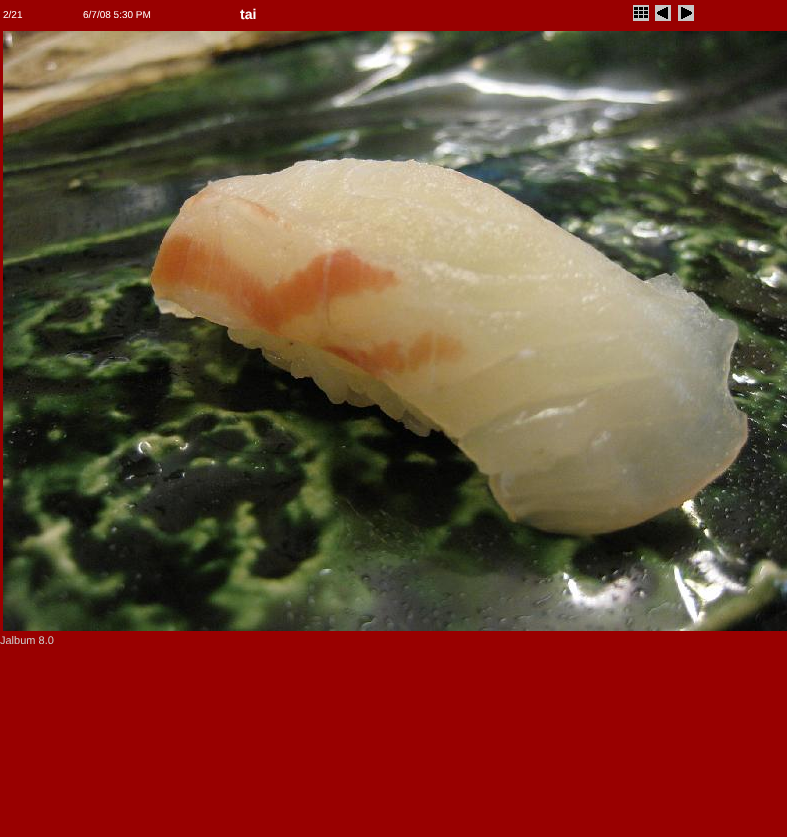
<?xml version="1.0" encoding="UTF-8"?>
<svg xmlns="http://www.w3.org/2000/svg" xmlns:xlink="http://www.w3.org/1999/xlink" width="787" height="837">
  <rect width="100%" height="100%" fill="#990000" />
  <image x="633" y="5" width="16" height="16" xlink:href="image1.png" />
  <image x="655" y="5" width="16" height="16" xlink:href="image2.png" />
  <image x="678" y="5" width="16" height="16" xlink:href="image3.png" />
  <image x="3" y="31" width="784" height="600" xlink:href="image4.png" />
  <text x="3" y="18" style="font-family: Liberation Sans; font-size: 10px; fill: #ffffff">2/21</text>
  <text x="83" y="18" style="font-family: Liberation Sans; font-size: 10px; fill: #ffffff">6/7/08 5:30 PM</text>
  <text x="240" y="19" style="font-family: Liberation Sans; font-size: 14px; font-weight: bold; fill: #ffffff">tai</text>
  <text x="0" y="644" style="font-family: Liberation Sans; font-size: 11px; fill: #cccccc">Jalbum 8.0</text>
</svg>
